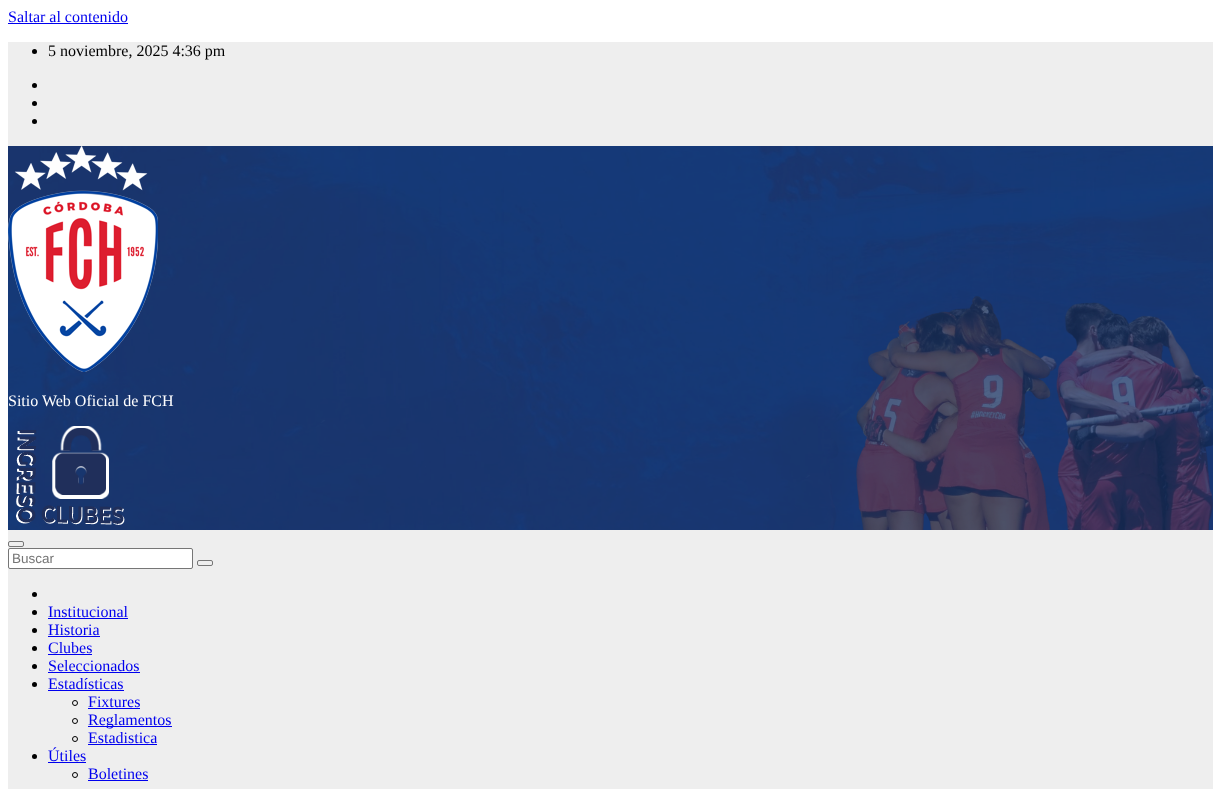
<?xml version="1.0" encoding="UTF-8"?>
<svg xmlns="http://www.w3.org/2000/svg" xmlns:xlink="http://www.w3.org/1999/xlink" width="1221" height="789">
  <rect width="100%" height="100%" fill="#ffffff" />
  <rect x="8" y="23" width="120" height="1" fill="#0000ee" />
  <rect x="8" y="42" width="1205" height="747" fill="#eeeeee" />
  <circle cx="34.5" cy="51.5" r="2.5" fill="#000000" />
  <circle cx="34.5" cy="85.5" r="2.5" fill="#000000" />
  <circle cx="34.5" cy="103.5" r="2.5" fill="#000000" />
  <circle cx="34.5" cy="121.5" r="2.5" fill="#000000" />
  <image x="8" y="146" width="1205" height="384" xlink:href="image1.png" />
  <image x="8" y="146" width="150" height="226" xlink:href="image2.png" />
  <image x="16" y="426" width="109" height="99" xlink:href="image3.png" />
  <rect x="8.5" y="541.5" width="15" height="5" rx="1.5" fill="none" stroke="#767676" />
  <rect x="8.5" y="548.5" width="184" height="20" rx="1.5" fill="#ffffff" stroke="#767676" />
  <rect x="197.5" y="560.5" width="15" height="5" rx="1.5" fill="none" stroke="#767676" />
  <circle cx="34.5" cy="594.5" r="2.5" fill="#000000" />
  <circle cx="34.5" cy="612.5" r="2.5" fill="#000000" />
  <rect x="48" y="618" width="80" height="1" fill="#0000ee" />
  <circle cx="34.5" cy="630.5" r="2.5" fill="#000000" />
  <rect x="48" y="636" width="52" height="1" fill="#0000ee" />
  <circle cx="34.5" cy="648.5" r="2.5" fill="#000000" />
  <rect x="48" y="654" width="44" height="1" fill="#0000ee" />
  <circle cx="34.5" cy="666.5" r="2.5" fill="#000000" />
  <rect x="48" y="672" width="92" height="1" fill="#0000ee" />
  <circle cx="34.5" cy="684.5" r="2.5" fill="#000000" />
  <rect x="48" y="690" width="76" height="1" fill="#0000ee" />
  <circle cx="75" cy="703" r="2.5" fill="none" stroke="#000000" />
  <rect x="88" y="708" width="52" height="1" fill="#0000ee" />
  <circle cx="75" cy="721" r="2.5" fill="none" stroke="#000000" />
  <rect x="88" y="726" width="84" height="1" fill="#0000ee" />
  <circle cx="75" cy="739" r="2.5" fill="none" stroke="#000000" />
  <rect x="88" y="744" width="69" height="1" fill="#0000ee" />
  <circle cx="34.5" cy="756.5" r="2.5" fill="#000000" />
  <rect x="48" y="762" width="38" height="1" fill="#0000ee" />
  <circle cx="75" cy="775" r="2.5" fill="none" stroke="#000000" />
  <rect x="88" y="780" width="60" height="1" fill="#0000ee" />
  <text x="8" y="22" style="font-family: Liberation Serif; font-size: 16px; fill: #0000ee">Saltar al contenido</text>
  <text x="48" y="56" style="font-family: Liberation Serif; font-size: 16px; fill: #000000">5 noviembre, 2025 4:36 pm</text>
  <text x="8" y="406" style="font-family: Liberation Serif; font-size: 16px; fill: #ffffff">Sitio Web Oficial de FCH</text>
  <text x="12" y="563" style="font-family: Liberation Sans; font-size: 13.5px; fill: #757575">Buscar</text>
  <text x="48" y="617" style="font-family: Liberation Serif; font-size: 16px; fill: #0000ee">Institucional</text>
  <text x="48" y="635" style="font-family: Liberation Serif; font-size: 16px; fill: #0000ee">Historia</text>
  <text x="48" y="653" style="font-family: Liberation Serif; font-size: 16px; fill: #0000ee">Clubes</text>
  <text x="48" y="671" style="font-family: Liberation Serif; font-size: 16px; fill: #0000ee">Seleccionados</text>
  <text x="48" y="689" style="font-family: Liberation Serif; font-size: 16px; fill: #0000ee">Estadísticas</text>
  <text x="88" y="707" style="font-family: Liberation Serif; font-size: 16px; fill: #0000ee">Fixtures</text>
  <text x="88" y="725" style="font-family: Liberation Serif; font-size: 16px; fill: #0000ee">Reglamentos</text>
  <text x="88" y="743" style="font-family: Liberation Serif; font-size: 16px; fill: #0000ee">Estadistica</text>
  <text x="48" y="761" style="font-family: Liberation Serif; font-size: 16px; fill: #0000ee">Útiles</text>
  <text x="88" y="779" style="font-family: Liberation Serif; font-size: 16px; fill: #0000ee">Boletines</text>
</svg>
